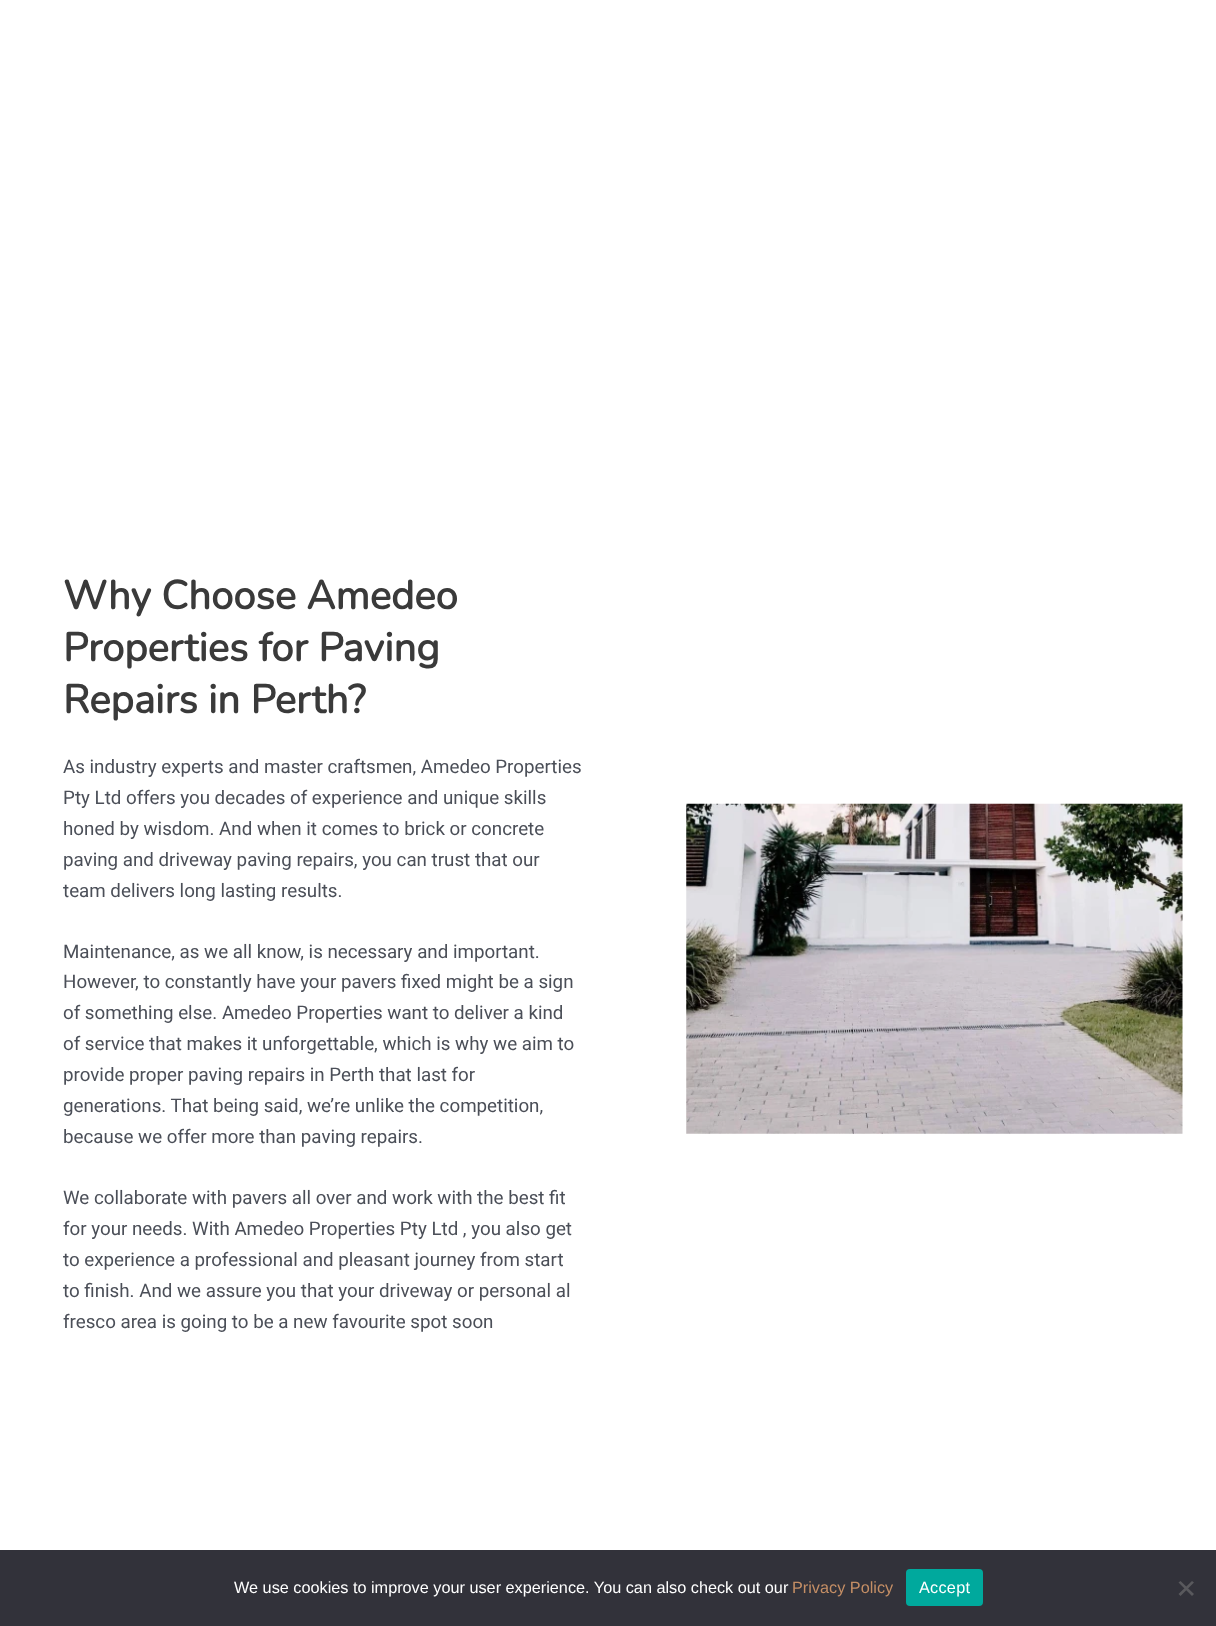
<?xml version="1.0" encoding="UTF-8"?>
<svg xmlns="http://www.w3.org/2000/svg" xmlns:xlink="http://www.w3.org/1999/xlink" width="1216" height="1626">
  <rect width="100%" height="100%" fill="#ffffff" />
  <image x="686" y="803" width="497" height="331" xlink:href="image1.png" />
  <rect y="1550" width="1216" height="76" fill="#32323a" />
  <rect x="906" y="1569" width="77" height="37" rx="4" fill="#00a99d" />
  <path d="M 1192 1581 l 2 1.5 l -13.5 13.5 l -2 -2 z" fill="#59595d" />
  <path d="M 1178.5 1582.5 l 2 -1.5 l 13.5 13 l -2 2 z" fill="#59595d" />
  <text x="63" y="609" style="font-family: Nunito; font-size: 40px; font-weight: bold; fill: #3a3a3a">Why Choose Amedeo</text>
  <text x="63" y="661" style="font-family: Nunito; font-size: 40px; font-weight: bold; fill: #3a3a3a">Properties for Paving</text>
  <text x="63" y="713" style="font-family: Nunito; font-size: 40px; font-weight: bold; fill: #3a3a3a">Repairs in Perth?</text>
  <text x="63" y="773" style="font-family: Roboto; font-size: 18.75px; fill: #4b4f58">As industry experts and master craftsmen, Amedeo Properties</text>
  <text x="63" y="804" style="font-family: Roboto; font-size: 18.75px; fill: #4b4f58">Pty Ltd offers you decades of experience and unique skills</text>
  <text x="63" y="835" style="font-family: Roboto; font-size: 18.75px; fill: #4b4f58">honed by wisdom. And when it comes to brick or concrete</text>
  <text x="63" y="866" style="font-family: Roboto; font-size: 18.75px; fill: #4b4f58">paving and driveway paving repairs, you can trust that our</text>
  <text x="63" y="897" style="font-family: Roboto; font-size: 18.75px; fill: #4b4f58">team delivers long lasting results.</text>
  <text x="63" y="958" style="font-family: Roboto; font-size: 18.75px; fill: #4b4f58">Maintenance, as we all know, is necessary and important.</text>
  <text x="63" y="988" style="font-family: Roboto; font-size: 18.75px; fill: #4b4f58">However, to constantly have your pavers fixed might be a sign</text>
  <text x="63" y="1019" style="font-family: Roboto; font-size: 18.75px; fill: #4b4f58">of something else. Amedeo Properties want to deliver a kind</text>
  <text x="63" y="1050" style="font-family: Roboto; font-size: 18.75px; fill: #4b4f58">of service that makes it unforgettable, which is why we aim to</text>
  <text x="63" y="1081" style="font-family: Roboto; font-size: 18.75px; fill: #4b4f58">provide proper paving repairs in Perth that last for</text>
  <text x="63" y="1112" style="font-family: Roboto; font-size: 18.75px; fill: #4b4f58">generations. That being said, we’re unlike the competition,</text>
  <text x="63" y="1143" style="font-family: Roboto; font-size: 18.75px; fill: #4b4f58">because we offer more than paving repairs.</text>
  <text x="63" y="1204" style="font-family: Roboto; font-size: 18.75px; fill: #4b4f58">We collaborate with pavers all over and work with the best fit</text>
  <text x="63" y="1235" style="font-family: Roboto; font-size: 18.75px; fill: #4b4f58">for your needs. With Amedeo Properties Pty Ltd , you also get</text>
  <text x="63" y="1266" style="font-family: Roboto; font-size: 18.75px; fill: #4b4f58">to experience a professional and pleasant journey from start</text>
  <text x="63" y="1297" style="font-family: Roboto; font-size: 18.75px; fill: #4b4f58">to finish. And we assure you that your driveway or personal al</text>
  <text x="63" y="1328" style="font-family: Roboto; font-size: 18.75px; fill: #4b4f58">fresco area is going to be a new favourite spot soon</text>
  <text x="234" y="1593" style="font-family: Liberation Sans; font-size: 16.25px; fill: #ffffff">We use cookies to improve your user experience. You can also check out our</text>
  <text x="792" y="1593" style="font-family: Liberation Sans; font-size: 16.25px; fill: #c48e65">Privacy Policy</text>
  <text x="919" y="1593" style="font-family: Liberation Sans; font-size: 16.25px; letter-spacing: 0.25px; fill: #ffffff">Accept</text>
</svg>
